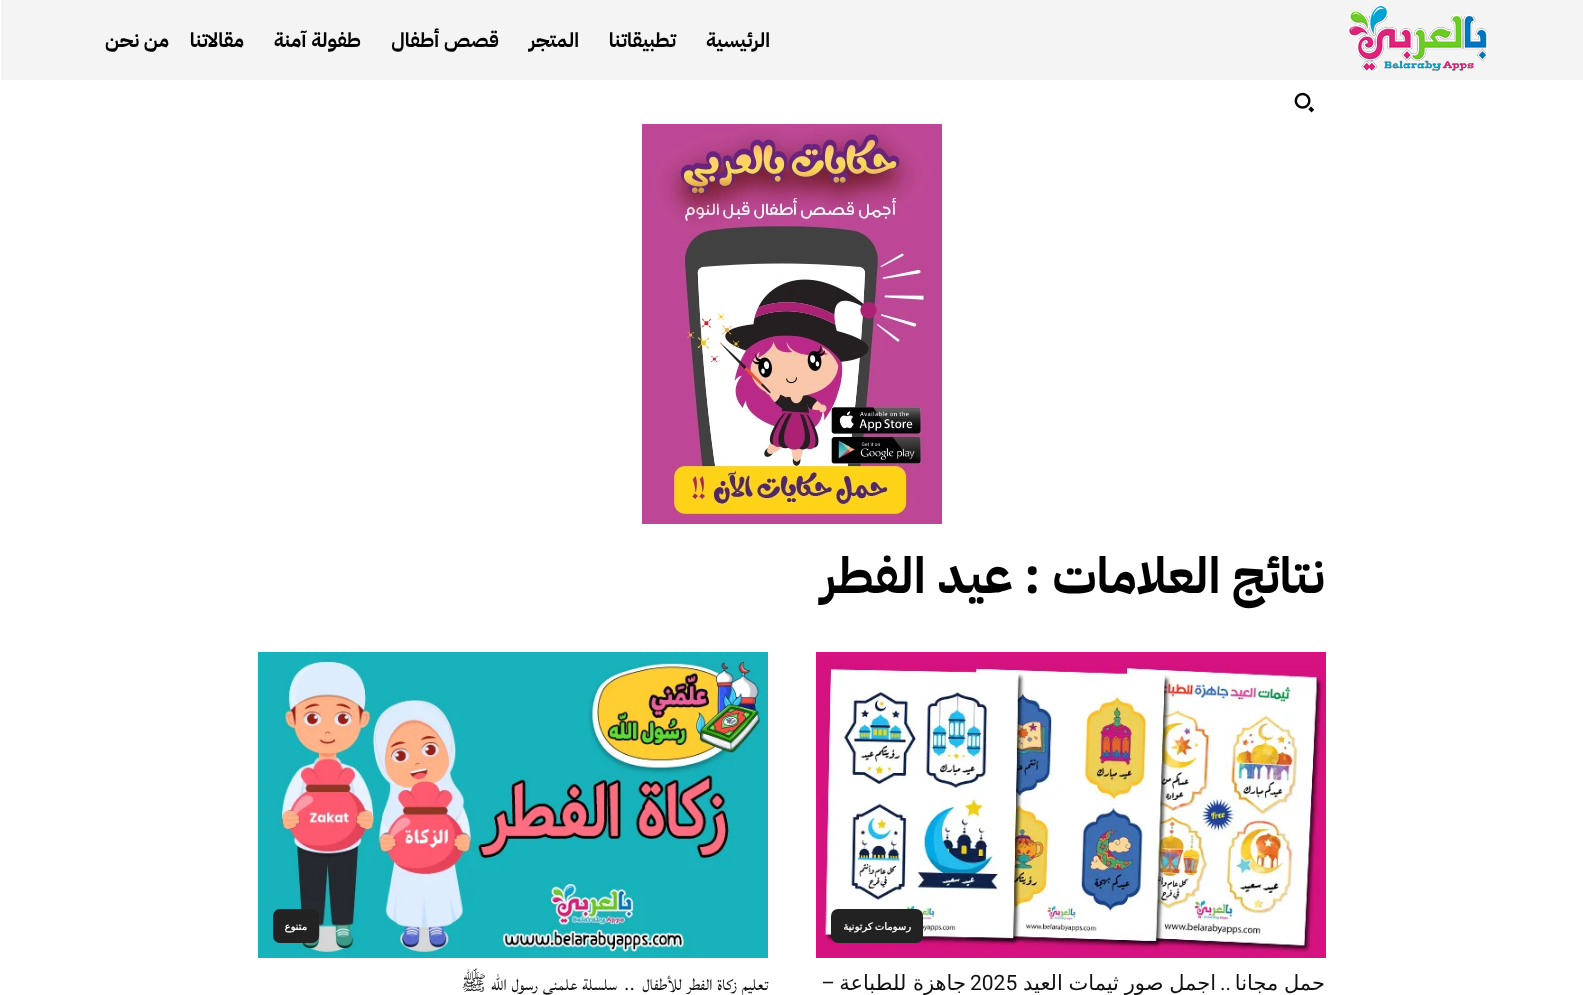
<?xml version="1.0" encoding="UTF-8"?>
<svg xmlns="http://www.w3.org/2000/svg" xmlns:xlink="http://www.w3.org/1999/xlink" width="1583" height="995">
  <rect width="100%" height="100%" fill="#ffffff" />
  <rect x="1" width="1582" height="80" fill="#f4f4f4" />
  <image x="1348" y="5" width="140" height="67" xlink:href="image1.png" />
  <image x="1294" y="92" width="21" height="21" xlink:href="image2.png" />
  <image x="642" y="124" width="300" height="400" xlink:href="image3.png" />
  <image x="816" y="652" width="510" height="306" xlink:href="image4.png" />
  <rect x="831" y="909" width="92" height="34" rx="7" fill="#222222" />
  <image x="258" y="652" width="510" height="306" xlink:href="image5.png" />
  <rect x="273" y="909" width="46" height="34" rx="7" fill="#222222" />
  <text x="770" y="47" style="font-family: IBM Plex Sans Arabic; font-size: 20px; font-weight: bold; direction: rtl; fill: #000000">الرئيسية</text>
  <text x="676" y="47" style="font-family: IBM Plex Sans Arabic; font-size: 20px; font-weight: bold; direction: rtl; fill: #000000">تطبيقاتنا</text>
  <text x="579" y="47" style="font-family: IBM Plex Sans Arabic; font-size: 20px; font-weight: bold; direction: rtl; fill: #000000">المتجر</text>
  <text x="499" y="47" style="font-family: IBM Plex Sans Arabic; font-size: 20px; font-weight: bold; direction: rtl; fill: #000000">قصص أطفال</text>
  <text x="361" y="47" style="font-family: IBM Plex Sans Arabic; font-size: 20px; font-weight: bold; direction: rtl; fill: #000000">طفولة آمنة</text>
  <text x="244" y="47" style="font-family: IBM Plex Sans Arabic; font-size: 20px; font-weight: bold; direction: rtl; fill: #000000">مقالاتنا</text>
  <text x="169" y="47" style="font-family: IBM Plex Sans Arabic; font-size: 20px; font-weight: bold; direction: rtl; fill: #000000">من نحن</text>
  <text x="1325" y="593" style="font-family: IBM Plex Sans Arabic; font-size: 50px; font-weight: bold; direction: rtl; fill: #000000">نتائج العلامات :</text>
  <text x="1013" y="593" style="font-family: IBM Plex Sans Arabic; font-size: 50px; font-weight: bold; direction: rtl; fill: #000000">عيد الفطر</text>
  <text x="911" y="930" word-spacing="-1" style="font-family: DejaVu Sans; font-size: 10px; font-weight: bold; direction: rtl; fill: #ffffff">رسومات كرتونية</text>
  <text x="1325" y="990" word-spacing="-1" style="font-family: DejaVu Sans; font-size: 21px; direction: rtl; fill: #111111">حمل مجانا</text>
  <text x="1216" y="990" word-spacing="-1" style="font-family: DejaVu Sans; font-size: 21px; direction: rtl; fill: #111111">اجمل صور ثيمات العيد</text>
  <text x="970" y="990" style="font-family: Roboto; font-size: 21px; fill: #111111">2025</text>
  <text x="966" y="990" style="font-family: DejaVu Sans; font-size: 21px; direction: rtl; fill: #111111">جاهزة للطباعة</text>
  <text x="835" y="990" style="font-family: Roboto; font-size: 21px; direction: rtl; fill: #111111">–</text>
  <text x="1231" y="990" style="font-family: Roboto; font-size: 21px; direction: rtl; fill: #111111">..</text>
  <text x="307" y="930" style="font-family: DejaVu Sans; font-size: 10px; font-weight: bold; direction: rtl; fill: #ffffff">متنوع</text>
  <text x="768" y="990" word-spacing="1.5" style="font-family: Lateef; font-size: 21px; direction: rtl; fill: #111111">تعليم زكاة الفطر للأطفال</text>
  <text x="635" y="990" style="font-family: Roboto; font-size: 21px; direction: rtl; fill: #111111">..</text>
  <text x="617" y="990" word-spacing="1.5" style="font-family: Lateef; font-size: 21px; direction: rtl; fill: #111111">سلسلة علمني رسول الله ﷺ</text>
</svg>
